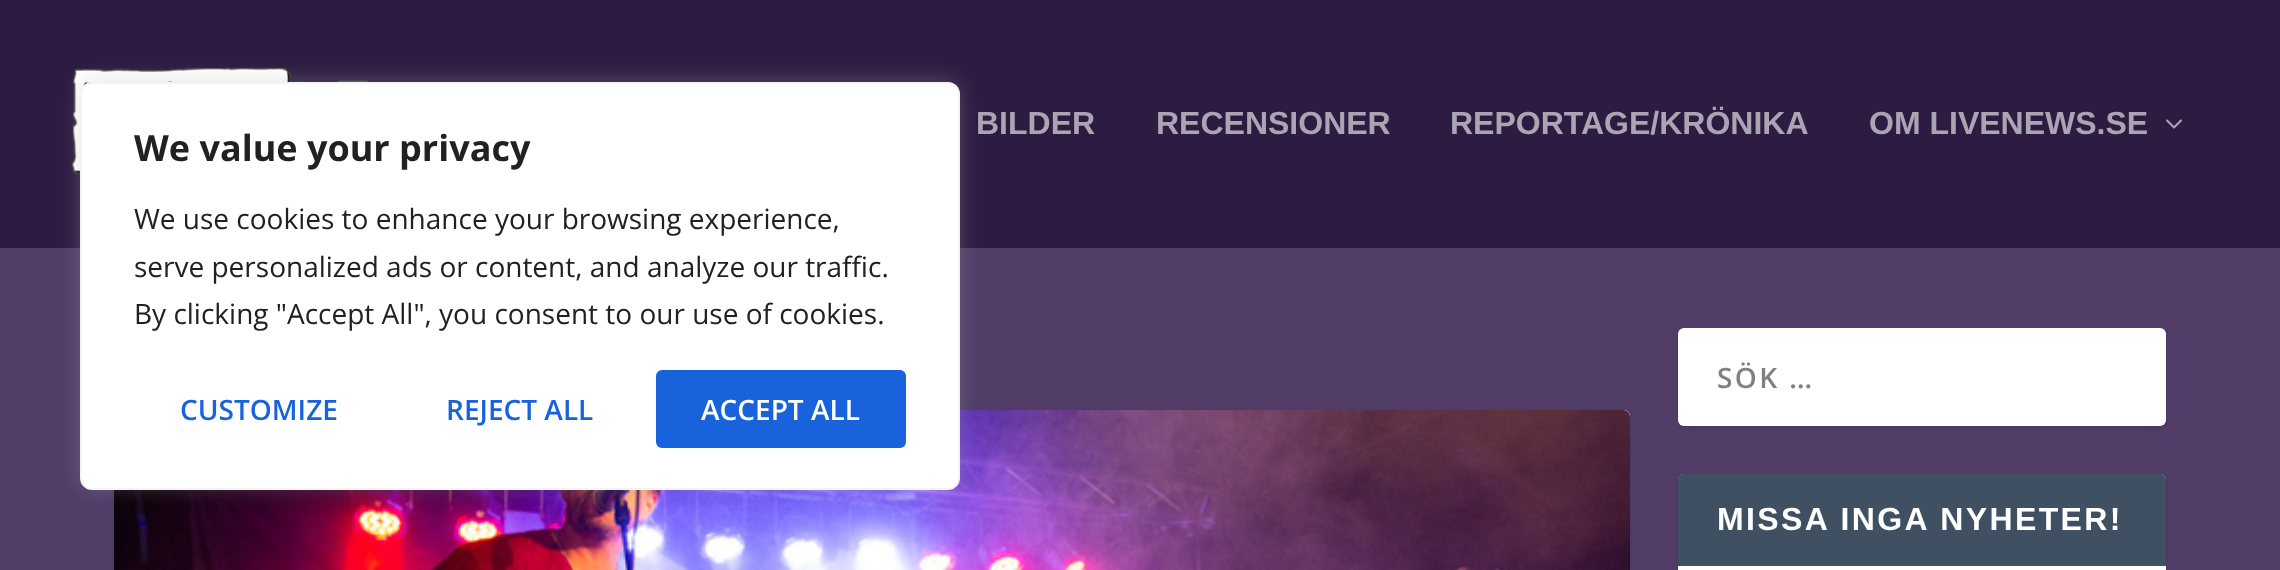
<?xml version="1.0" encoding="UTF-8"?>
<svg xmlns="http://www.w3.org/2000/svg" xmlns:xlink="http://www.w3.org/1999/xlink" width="2280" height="570">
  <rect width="100%" height="100%" fill="#523d69" />
  <rect width="2280" height="248" fill="#2e1b42" />
  <image x="71" y="67" width="298" height="108" xlink:href="image1.png" />
  <rect x="114" y="412" width="1516" height="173" rx="6" fill="#000000" fill-opacity="0.1" filter="blur(3px)" />
  <rect x="114" y="410" width="1516" height="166" rx="6" fill="#ffffff" />
  <image x="114" y="410" width="1516" height="160" xlink:href="image3.png" />
  <rect x="80" y="80" width="880" height="408" rx="12" fill="#acabab" fill-opacity="0.3" filter="blur(10px)" />
  <rect x="81" y="83" width="878" height="406" rx="11" fill="#ffffff" stroke="#f4f4f4" stroke-width="2" />
  <rect x="656" y="370" width="250" height="78" rx="6" fill="#1863dc" />
  <image x="2166" y="119" width="16" height="10" xlink:href="image2.png" />
  <rect x="1678" y="330" width="488" height="98" rx="6" fill="#000000" fill-opacity="0.1" filter="blur(3px)" />
  <rect x="1678" y="328" width="488" height="98" rx="6" fill="#ffffff" />
  <rect x="1678" y="476" width="488" height="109" rx="6" fill="#000000" fill-opacity="0.1" filter="blur(3px)" />
  <rect x="1678" y="474" width="488" height="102" rx="6" fill="#ffffff" />
  <path d="M 1684 474 h 476 c 3.5 0 6 2.5 6 6 v 86 h -488 v -86 c 0 -3.5 2.5 -6 6 -6 z" fill="#3e5062" />
  <text x="134" y="161" style="font-family: Open Sans; font-size: 36px; font-weight: bold; fill: #212121">We value your privacy</text>
  <text x="134" y="229" style="font-family: Open Sans; font-size: 28px; fill: #212121">We use cookies to enhance your browsing experience,</text>
  <text x="134" y="277" style="font-family: Open Sans; font-size: 28px; fill: #212121">serve personalized ads or content, and analyze our traffic.</text>
  <text x="134" y="324" style="font-family: Open Sans; font-size: 28px; fill: #212121">By clicking "Accept All", you consent to our use of cookies.</text>
  <text x="180" y="420" style="font-family: Open Sans; font-size: 28px; font-weight: 600; fill: #1863dc">CUSTOMIZE</text>
  <text x="446" y="420" style="font-family: Open Sans; font-size: 28px; font-weight: 600; fill: #1863dc">REJECT ALL</text>
  <text x="701" y="420" style="font-family: Open Sans; font-size: 28px; font-weight: 600; fill: #ffffff">ACCEPT ALL</text>
  <text x="976" y="134" style="font-family: Liberation Sans; font-size: 32px; font-weight: bold; fill: #aba4b3">BILDER</text>
  <text x="1156" y="134" style="font-family: Liberation Sans; font-size: 32px; font-weight: bold; fill: #aba4b3">RECENSIONER</text>
  <text x="1450" y="134" style="font-family: Liberation Sans; font-size: 32px; font-weight: bold; fill: #aba4b3">REPORTAGE/KRÖNIKA</text>
  <text x="1869" y="134" style="font-family: Liberation Sans; font-size: 32px; font-weight: bold; fill: #aba4b3">OM LIVENEWS.SE</text>
  <text x="1717" y="388" style="font-family: Open Sans; font-size: 28px; font-weight: 600; letter-spacing: 2.4px; fill: #808080">SÖK …</text>
  <text x="1717" y="530" style="font-family: Liberation Sans; font-size: 32px; font-weight: bold; letter-spacing: 2.4px; fill: #ffffff">MISSA INGA NYHETER!</text>
</svg>
